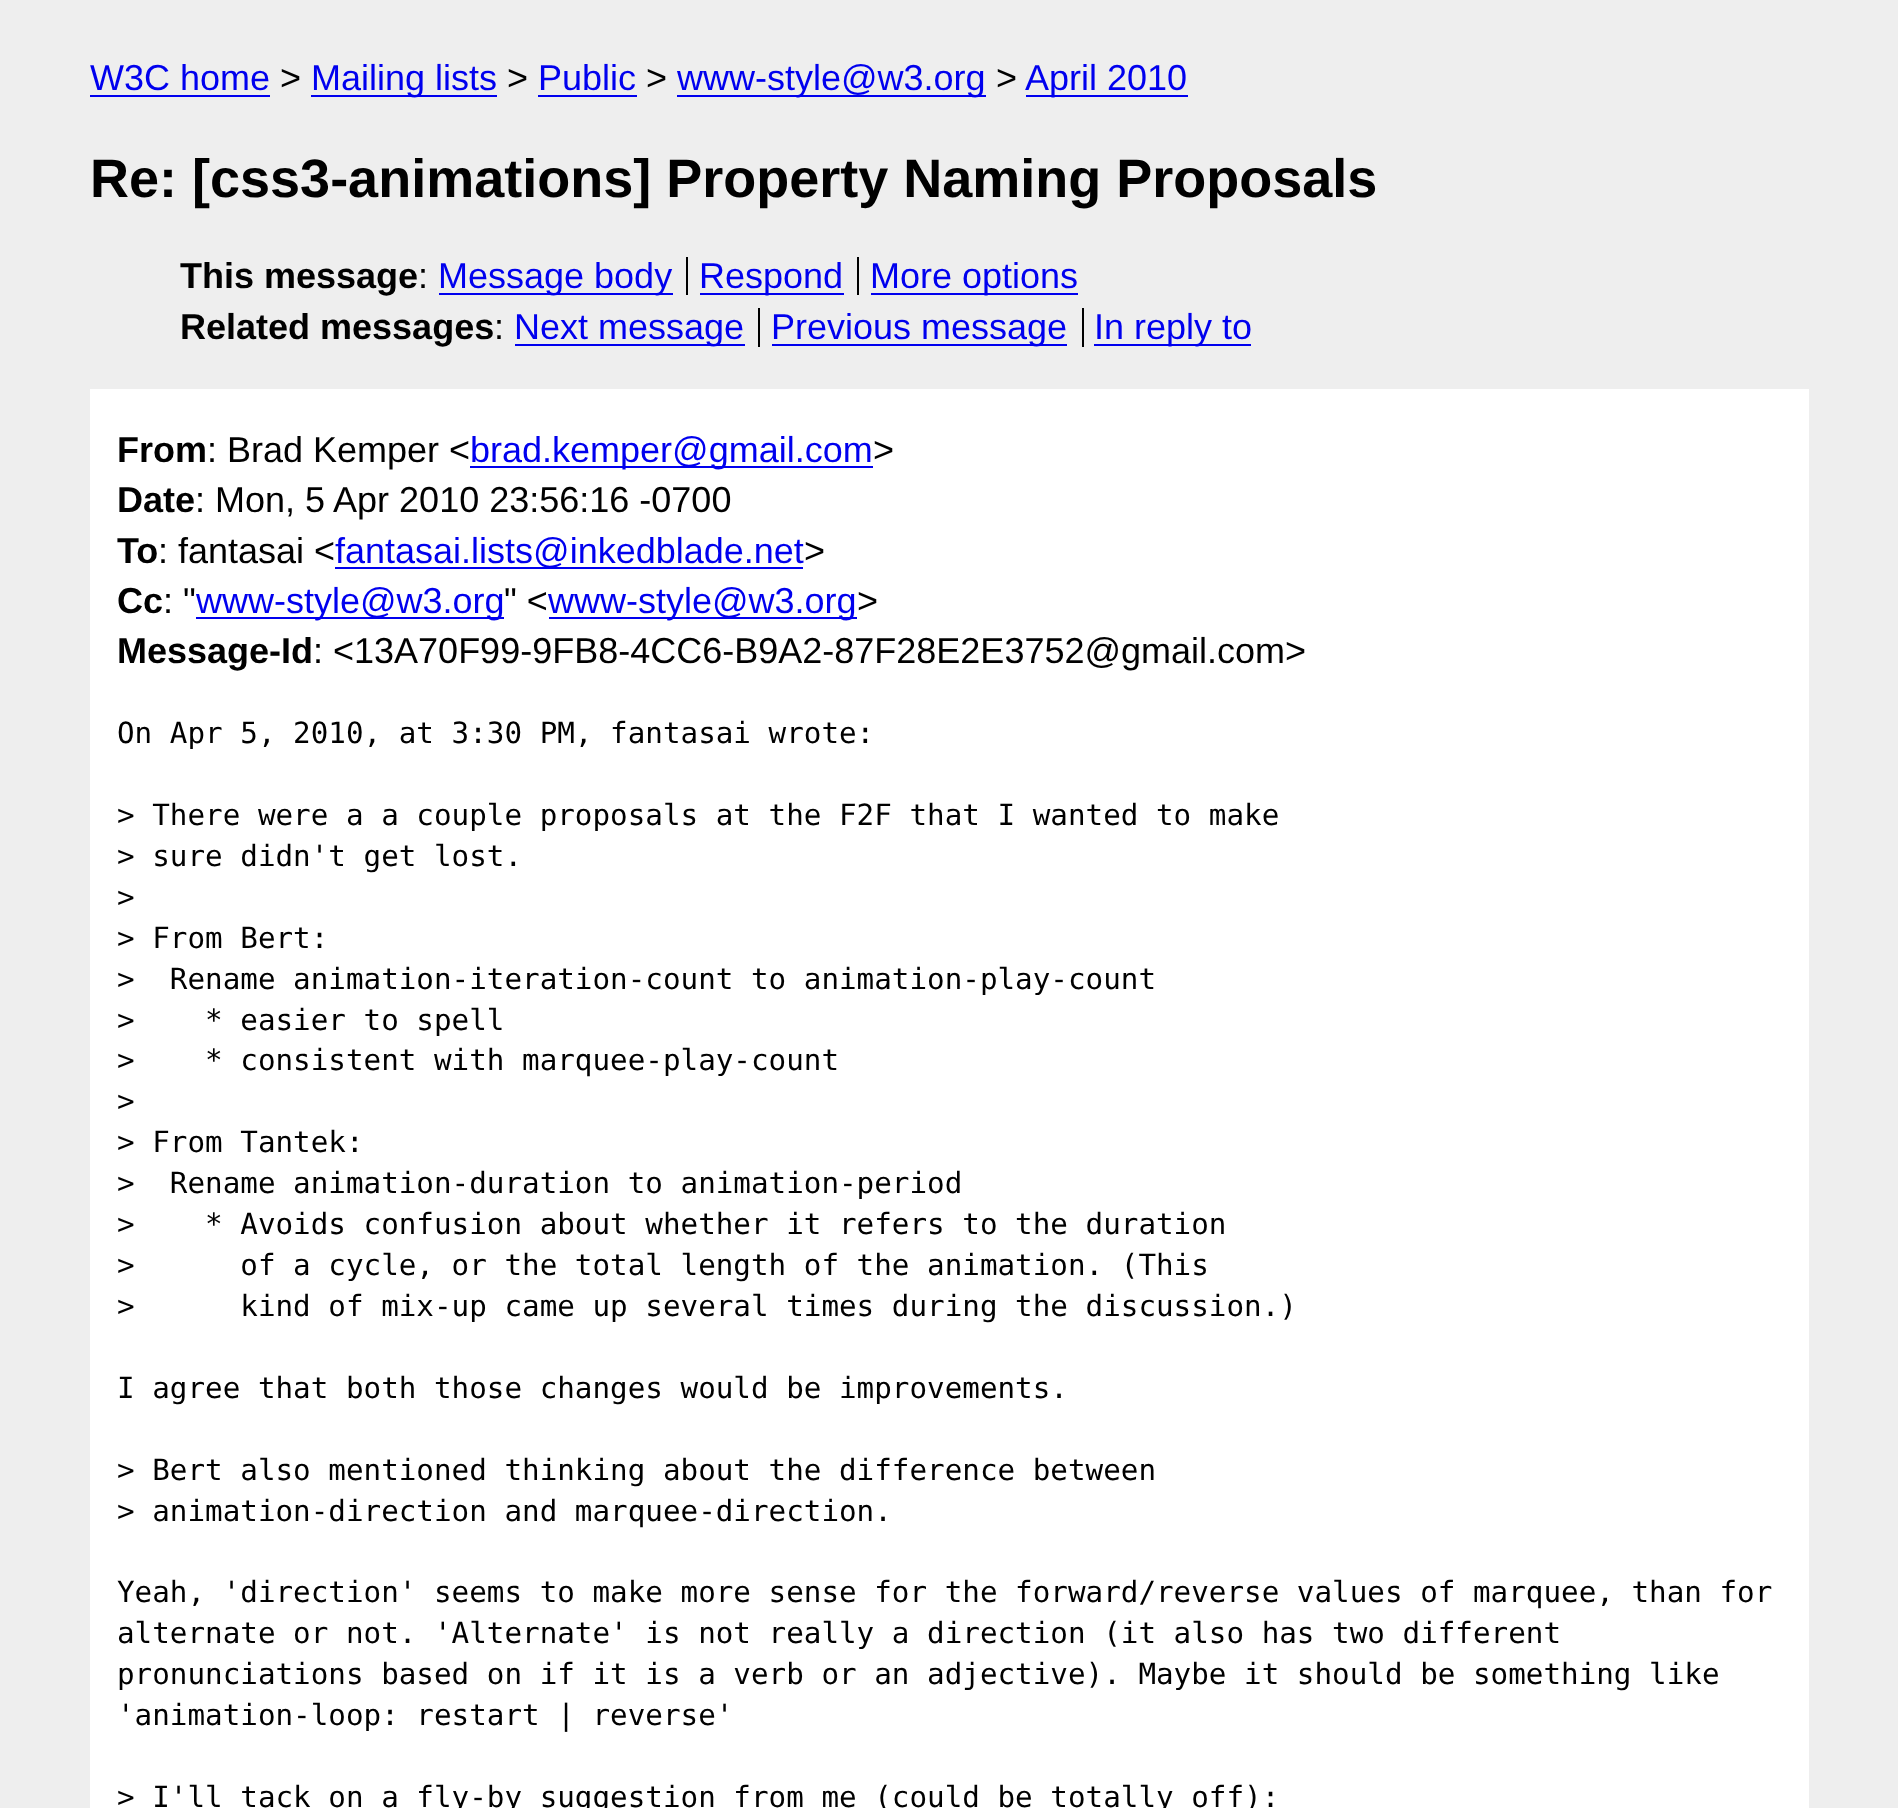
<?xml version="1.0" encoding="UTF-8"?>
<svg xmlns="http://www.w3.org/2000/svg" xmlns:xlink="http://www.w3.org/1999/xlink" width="1898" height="1808">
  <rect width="100%" height="100%" fill="#eeeeee" />
  <rect x="90" y="95" width="180" height="2" fill="#0000ee" />
  <rect x="311" y="95" width="186" height="2" fill="#0000ee" />
  <rect x="538" y="95" width="99" height="2" fill="#0000ee" />
  <rect x="677" y="95" width="309" height="2" fill="#0000ee" />
  <rect x="1026" y="95" width="162" height="2" fill="#0000ee" />
  <rect x="686" y="257" width="2" height="38" fill="#000000" />
  <rect x="439" y="293" width="234" height="2" fill="#0000ee" />
  <rect x="700" y="293" width="144" height="2" fill="#0000ee" />
  <rect x="857" y="257" width="2" height="38" fill="#000000" />
  <rect x="871" y="293" width="207" height="2" fill="#0000ee" />
  <rect x="515" y="344" width="230" height="2" fill="#0000ee" />
  <rect x="758" y="308" width="2" height="39" fill="#000000" />
  <rect x="772" y="344" width="295" height="2" fill="#0000ee" />
  <rect x="1082" y="308" width="2" height="39" fill="#000000" />
  <rect x="1094" y="344" width="157" height="2" fill="#0000ee" />
  <rect x="90" y="389" width="1719" height="1419" fill="#ffffff" />
  <rect x="470" y="466" width="403" height="2" fill="#0000ee" />
  <rect x="335" y="567" width="468" height="2" fill="#0000ee" />
  <rect x="196" y="617" width="308" height="2" fill="#0000ee" />
  <rect x="549" y="617" width="308" height="2" fill="#0000ee" />
  <text x="90" y="90" style="font-family: Liberation Sans; font-size: 36px; fill: #0000ee">W3C home</text>
  <text x="280" y="90" style="font-family: Liberation Sans; font-size: 36px; fill: #000000">&gt;</text>
  <text x="311" y="90" style="font-family: Liberation Sans; font-size: 36px; fill: #0000ee">Mailing lists</text>
  <text x="507" y="90" style="font-family: Liberation Sans; font-size: 36px; fill: #000000">&gt;</text>
  <text x="538" y="90" style="font-family: Liberation Sans; font-size: 36px; fill: #0000ee">Public</text>
  <text x="646" y="90" style="font-family: Liberation Sans; font-size: 36px; fill: #000000">&gt;</text>
  <text x="677" y="90" style="font-family: Liberation Sans; font-size: 36px; fill: #0000ee">www-style@w3.org</text>
  <text x="996" y="90" style="font-family: Liberation Sans; font-size: 36px; fill: #000000">&gt;</text>
  <text x="1025" y="90" style="font-family: Liberation Sans; font-size: 36px; fill: #0000ee">April 2010</text>
  <text x="90" y="197" style="font-family: Liberation Sans; font-size: 54px; font-weight: bold; fill: #000000">Re: [css3-animations] Property Naming Proposals</text>
  <text x="180" y="288" style="font-family: Liberation Sans; font-size: 36px; font-weight: bold; fill: #000000">This message</text>
  <text x="418" y="288" style="font-family: Liberation Sans; font-size: 36px; fill: #000000">:</text>
  <text x="438" y="288" style="font-family: Liberation Sans; font-size: 36px; fill: #0000ee">Message body</text>
  <text x="699" y="288" style="font-family: Liberation Sans; font-size: 36px; fill: #0000ee">Respond</text>
  <text x="870" y="288" style="font-family: Liberation Sans; font-size: 36px; fill: #0000ee">More options</text>
  <text x="180" y="339" style="font-family: Liberation Sans; font-size: 36px; font-weight: bold; fill: #000000">Related messages</text>
  <text x="494" y="339" style="font-family: Liberation Sans; font-size: 36px; fill: #000000">:</text>
  <text x="514" y="339" style="font-family: Liberation Sans; font-size: 36px; fill: #0000ee">Next message</text>
  <text x="771" y="339" style="font-family: Liberation Sans; font-size: 36px; fill: #0000ee">Previous message</text>
  <text x="1094" y="339" style="font-family: Liberation Sans; font-size: 36px; fill: #0000ee">In reply to</text>
  <text x="117" y="462" style="font-family: Liberation Sans; font-size: 36px; font-weight: bold; fill: #000000">From</text>
  <text x="207" y="462" style="font-family: Liberation Sans; font-size: 36px; fill: #000000">: Brad Kemper &lt;</text>
  <text x="470" y="462" style="font-family: Liberation Sans; font-size: 36px; fill: #0000ee">brad.kemper@gmail.com</text>
  <text x="873" y="462" style="font-family: Liberation Sans; font-size: 36px; fill: #000000">&gt;</text>
  <text x="117" y="512" style="font-family: Liberation Sans; font-size: 36px; font-weight: bold; fill: #000000">Date</text>
  <text x="195" y="512" style="font-family: Liberation Sans; font-size: 36px; fill: #000000">: Mon, 5 Apr 2010 23:56:16 -0700</text>
  <text x="117" y="563" style="font-family: Liberation Sans; font-size: 36px; font-weight: bold; fill: #000000">To</text>
  <text x="158" y="563" style="font-family: Liberation Sans; font-size: 36px; fill: #000000">: fantasai &lt;</text>
  <text x="335" y="563" style="font-family: Liberation Sans; font-size: 36px; fill: #0000ee">fantasai.lists@inkedblade.net</text>
  <text x="804" y="563" style="font-family: Liberation Sans; font-size: 36px; fill: #000000">&gt;</text>
  <text x="117" y="613" style="font-family: Liberation Sans; font-size: 36px; font-weight: bold; fill: #000000">Cc</text>
  <text x="163" y="613" style="font-family: Liberation Sans; font-size: 36px; fill: #000000">: "</text>
  <text x="196" y="613" style="font-family: Liberation Sans; font-size: 36px; fill: #0000ee">www-style@w3.org</text>
  <text x="504" y="613" style="font-family: Liberation Sans; font-size: 36px; fill: #000000">" &lt;</text>
  <text x="548" y="613" style="font-family: Liberation Sans; font-size: 36px; fill: #0000ee">www-style@w3.org</text>
  <text x="857" y="613" style="font-family: Liberation Sans; font-size: 36px; fill: #000000">&gt;</text>
  <text x="117" y="663" style="font-family: Liberation Sans; font-size: 36px; font-weight: bold; fill: #000000">Message-Id</text>
  <text x="313" y="663" style="font-family: Liberation Sans; font-size: 36px; fill: #000000">: &lt;13A70F99-9FB8-4CC6-B9A2-87F28E2E3752@gmail.com&gt;</text>
  <text x="117" y="743" style="font-family: DejaVu Sans Mono; font-size: 29.25px; fill: #000000">On Apr 5, 2010, at 3:30 PM, fantasai wrote:</text>
  <text x="117" y="825" style="font-family: DejaVu Sans Mono; font-size: 29.25px; fill: #000000">&gt; There were a a couple proposals at the F2F that I wanted to make</text>
  <text x="117" y="866" style="font-family: DejaVu Sans Mono; font-size: 29.25px; fill: #000000">&gt; sure didn't get lost.</text>
  <text x="117" y="907" style="font-family: DejaVu Sans Mono; font-size: 29.25px; fill: #000000">&gt;</text>
  <text x="117" y="948" style="font-family: DejaVu Sans Mono; font-size: 29.25px; fill: #000000">&gt; From Bert:</text>
  <text x="117" y="989" style="font-family: DejaVu Sans Mono; font-size: 29.25px; fill: #000000" xml:space="preserve">&gt;  Rename animation-iteration-count to animation-play-count</text>
  <text x="117" y="1030" style="font-family: DejaVu Sans Mono; font-size: 29.25px; fill: #000000" xml:space="preserve">&gt;    * easier to spell</text>
  <text x="117" y="1070" style="font-family: DejaVu Sans Mono; font-size: 29.25px; fill: #000000" xml:space="preserve">&gt;    * consistent with marquee-play-count</text>
  <text x="117" y="1111" style="font-family: DejaVu Sans Mono; font-size: 29.25px; fill: #000000">&gt;</text>
  <text x="117" y="1152" style="font-family: DejaVu Sans Mono; font-size: 29.25px; fill: #000000">&gt; From Tantek:</text>
  <text x="117" y="1193" style="font-family: DejaVu Sans Mono; font-size: 29.25px; fill: #000000" xml:space="preserve">&gt;  Rename animation-duration to animation-period</text>
  <text x="117" y="1234" style="font-family: DejaVu Sans Mono; font-size: 29.25px; fill: #000000" xml:space="preserve">&gt;    * Avoids confusion about whether it refers to the duration</text>
  <text x="117" y="1275" style="font-family: DejaVu Sans Mono; font-size: 29.25px; fill: #000000" xml:space="preserve">&gt;      of a cycle, or the total length of the animation. (This</text>
  <text x="117" y="1316" style="font-family: DejaVu Sans Mono; font-size: 29.25px; fill: #000000" xml:space="preserve">&gt;      kind of mix-up came up several times during the discussion.)</text>
  <text x="117" y="1398" style="font-family: DejaVu Sans Mono; font-size: 29.25px; fill: #000000">I agree that both those changes would be improvements.</text>
  <text x="117" y="1480" style="font-family: DejaVu Sans Mono; font-size: 29.25px; fill: #000000">&gt; Bert also mentioned thinking about the difference between</text>
  <text x="117" y="1521" style="font-family: DejaVu Sans Mono; font-size: 29.25px; fill: #000000">&gt; animation-direction and marquee-direction.</text>
  <text x="117" y="1602" style="font-family: DejaVu Sans Mono; font-size: 29.25px; fill: #000000">Yeah, 'direction' seems to make more sense for the forward/reverse values of marquee, than for</text>
  <text x="117" y="1643" style="font-family: DejaVu Sans Mono; font-size: 29.25px; fill: #000000">alternate or not. 'Alternate' is not really a direction (it also has two different</text>
  <text x="117" y="1684" style="font-family: DejaVu Sans Mono; font-size: 29.25px; fill: #000000">pronunciations based on if it is a verb or an adjective). Maybe it should be something like</text>
  <text x="117" y="1725" style="font-family: DejaVu Sans Mono; font-size: 29.25px; fill: #000000">'animation-loop: restart | reverse'</text>
  <text x="117" y="1807" style="font-family: DejaVu Sans Mono; font-size: 29.25px; fill: #000000">&gt; I'll tack on a fly-by suggestion from me (could be totally off):</text>
</svg>
